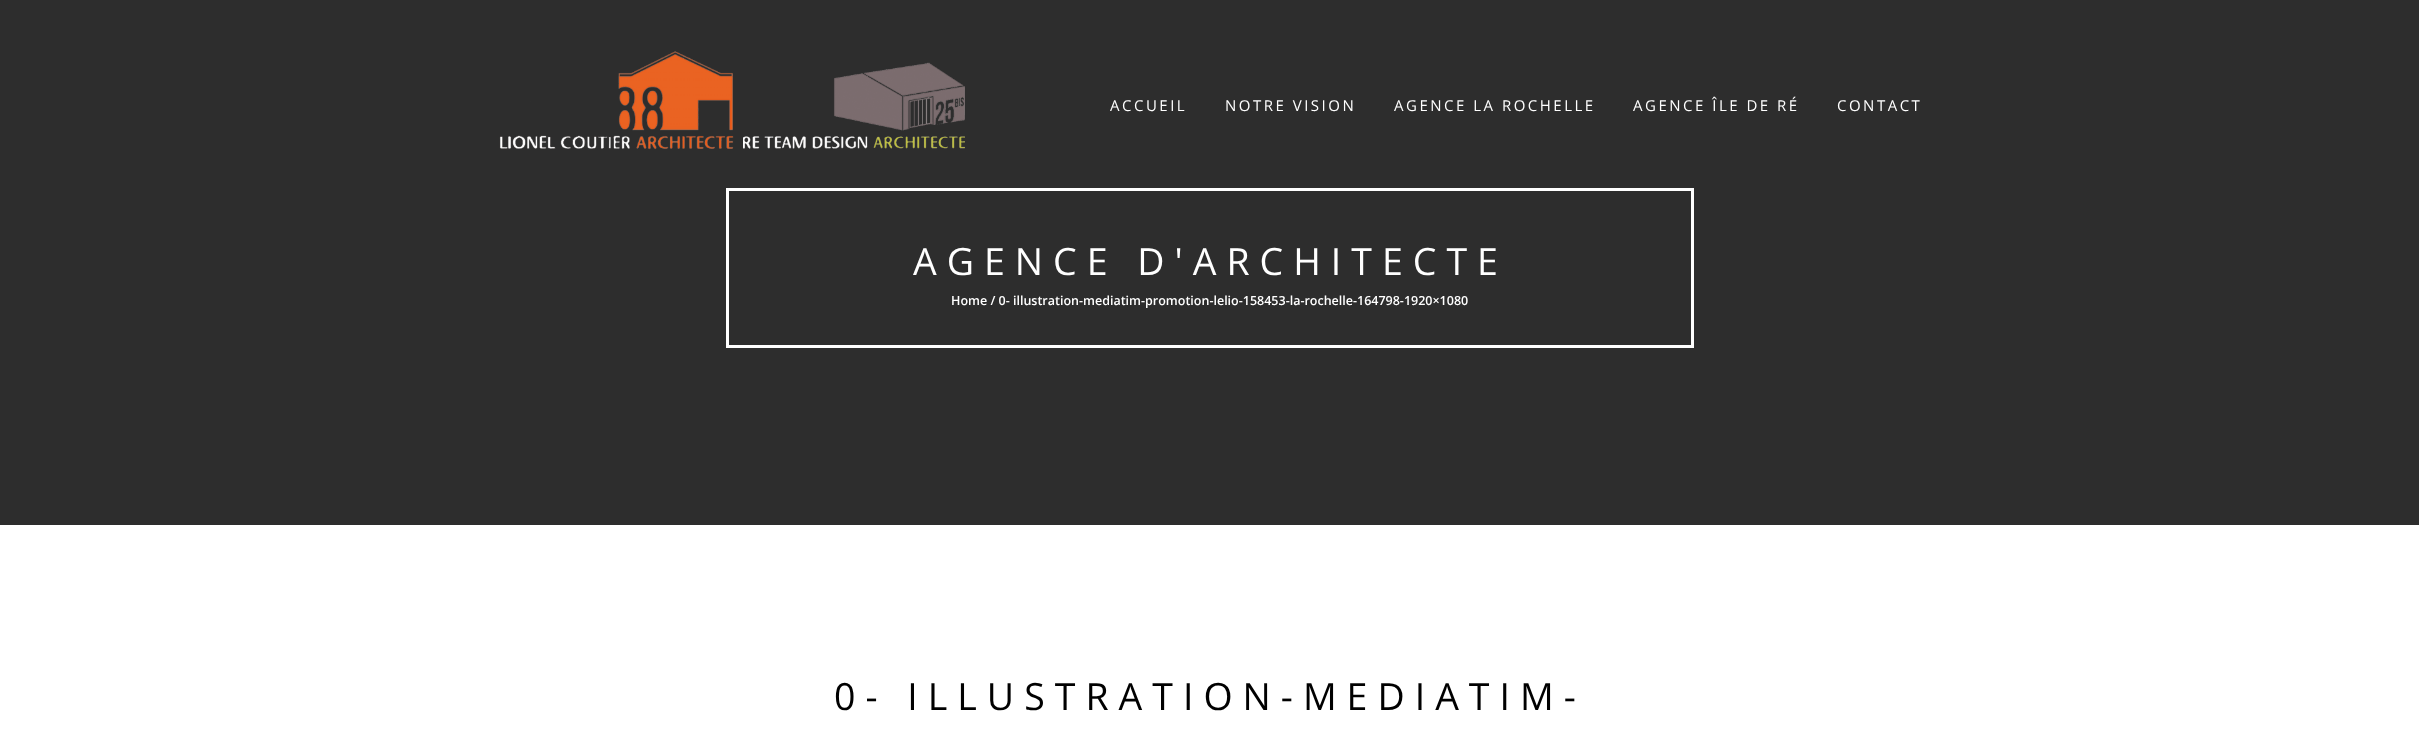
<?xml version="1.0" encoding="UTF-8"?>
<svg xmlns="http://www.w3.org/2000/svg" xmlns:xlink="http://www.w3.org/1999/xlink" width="2419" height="732">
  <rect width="100%" height="100%" fill="#ffffff" />
  <rect width="2419" height="525" fill="#2d2d2d" />
  <image x="499" y="51" width="466" height="99" xlink:href="image1.png" />
  <rect x="727.5" y="189.5" width="965" height="157" fill="none" stroke="#ffffff" stroke-width="3" />
  <text x="1110" y="111" style="font-family: Open Sans; font-size: 15px; letter-spacing: 2.5px; fill: #ffffff">ACCUEIL</text>
  <text x="1225" y="111" style="font-family: Open Sans; font-size: 15px; letter-spacing: 2.5px; fill: #ffffff">NOTRE VISION</text>
  <text x="1394" y="111" style="font-family: Open Sans; font-size: 15px; letter-spacing: 2.5px; fill: #ffffff">AGENCE LA ROCHELLE</text>
  <text x="1633" y="111" style="font-family: Open Sans; font-size: 15px; letter-spacing: 2.5px; fill: #ffffff">AGENCE ÎLE DE RÉ</text>
  <text x="1837" y="111" style="font-family: Open Sans; font-size: 15px; letter-spacing: 2.5px; fill: #ffffff">CONTACT</text>
  <text x="913" y="275" style="font-family: Open Sans; font-size: 37.5px; letter-spacing: 10px; fill: #ffffff">AGENCE D'ARCHITECTE</text>
  <text x="951" y="305" style="font-family: Open Sans; font-size: 12.5px; font-weight: 600; fill: #ffffff">Home / 0- illustration-mediatim-promotion-lelio-158453-la-rochelle-164798-1920×1080</text>
  <text x="834" y="710" style="font-family: Open Sans; font-size: 37.5px; letter-spacing: 10px; fill: #000000">0- ILLUSTRATION-MEDIATIM-</text>
</svg>
